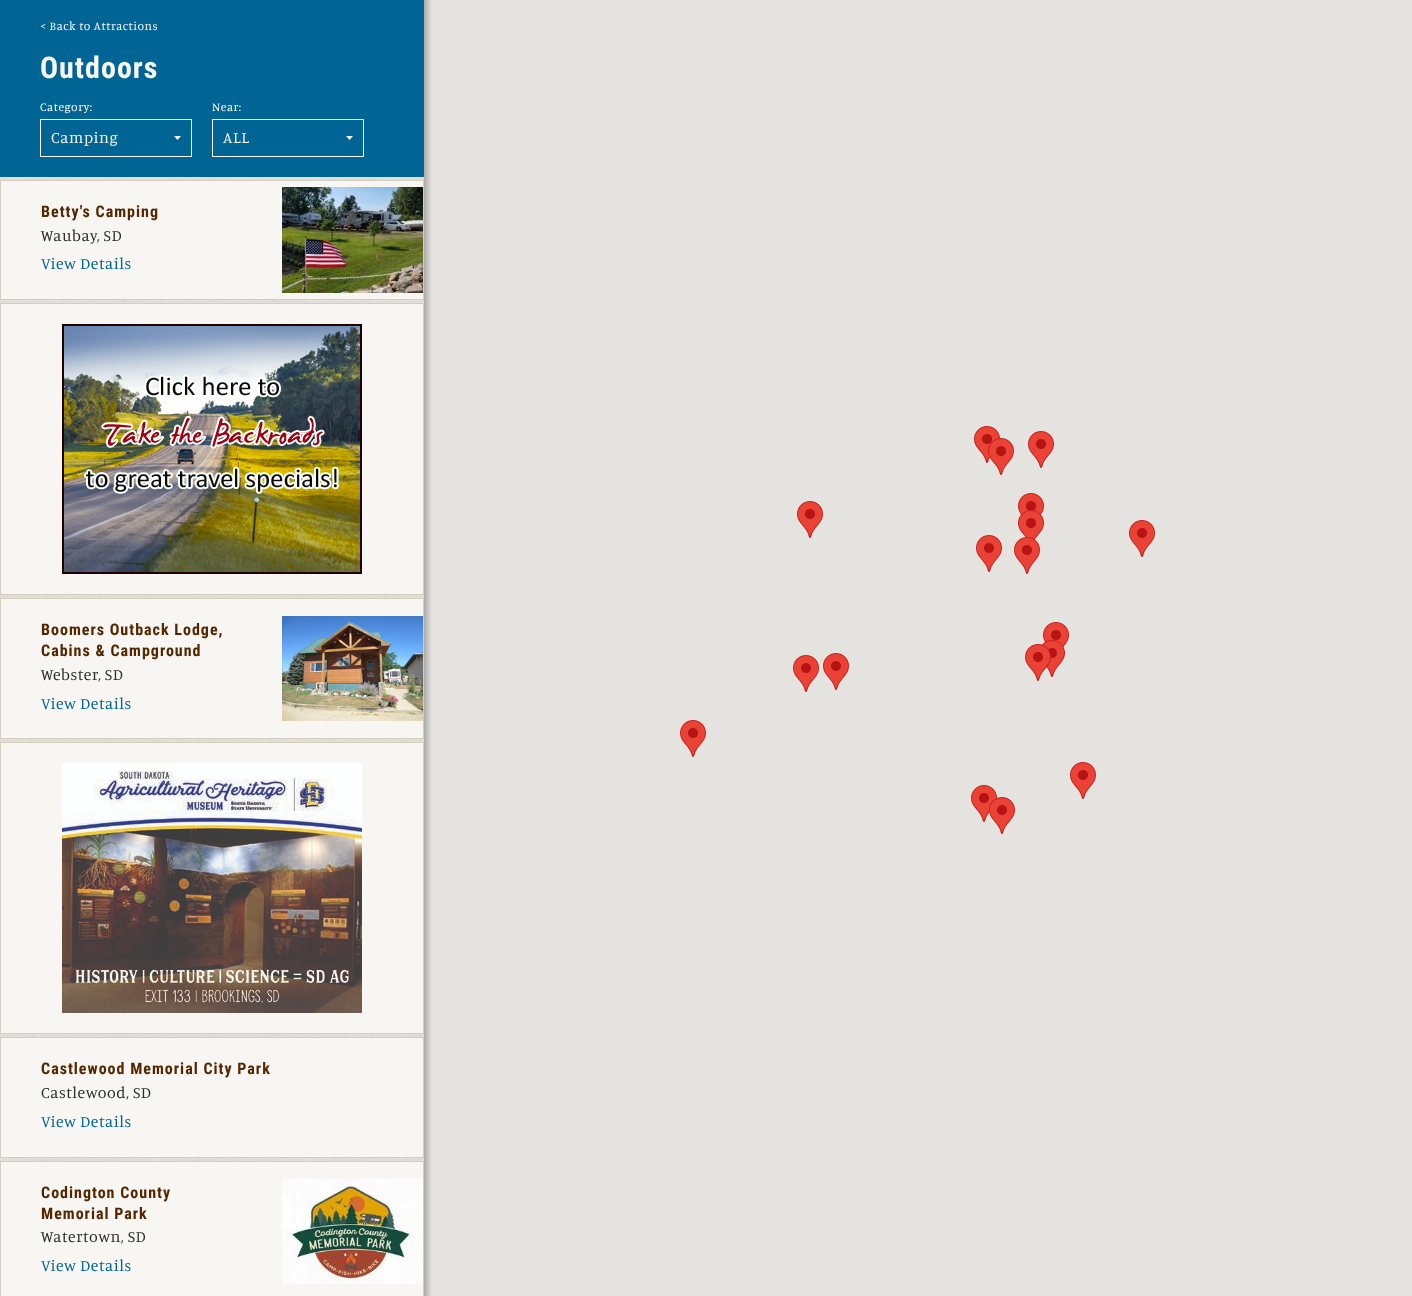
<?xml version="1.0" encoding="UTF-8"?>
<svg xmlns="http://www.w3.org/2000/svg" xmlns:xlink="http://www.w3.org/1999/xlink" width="1412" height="1296">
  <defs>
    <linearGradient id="g1" gradientUnits="userSpaceOnUse" x1="424" y1="648" x2="432" y2="648"><stop offset="0" stop-color="#acaaa7" /><stop offset="1" stop-color="#e5e3df" /></linearGradient>
  </defs>
  <rect width="100%" height="100%" fill="#ffffff" />
  <image x="0" y="177" width="424" height="984" xlink:href="image1.png" />
  <rect width="424" height="177" fill="#006494" />
  <path d="M 177.5 140 l -3.5 -4 h 7 z" fill="#f7f6f3" fill-rule="evenodd" />
  <rect x="40.5" y="119.5" width="151" height="37" fill="none" stroke="#f7f6f3" />
  <path d="M 349.5 140 l -3.5 -4 h 7 z" fill="#f7f6f3" fill-rule="evenodd" />
  <rect x="212.5" y="119.5" width="151" height="37" fill="none" stroke="#f7f6f3" />
  <rect x="424" width="8" height="1296" fill="url(#g1)" />
  <rect x="432" width="980" height="1296" fill="#e5e3df" />
  <image x="974" y="426" width="26" height="37" xlink:href="image2.png" />
  <image x="988" y="438" width="26" height="37" xlink:href="image3.png" />
  <image x="1028" y="431" width="26" height="37" xlink:href="image2.png" />
  <image x="797" y="501" width="26" height="37" xlink:href="image2.png" />
  <image x="1018" y="493" width="26" height="22" xlink:href="image4.png" />
  <image x="976" y="535" width="26" height="37" xlink:href="image2.png" />
  <image x="1018" y="510" width="26" height="30" xlink:href="image5.png" />
  <image x="1129" y="520" width="26" height="37" xlink:href="image2.png" />
  <image x="1014" y="537" width="26" height="37" xlink:href="image6.png" />
  <image x="1043" y="622" width="26" height="25" xlink:href="image7.png" />
  <image x="793" y="655" width="26" height="37" xlink:href="image2.png" />
  <image x="823" y="653" width="26" height="37" xlink:href="image2.png" />
  <image x="1042" y="640" width="23" height="37" xlink:href="image9.png" />
  <image x="1025" y="644" width="26" height="37" xlink:href="image8.png" />
  <image x="680" y="720" width="26" height="37" xlink:href="image2.png" />
  <image x="1070" y="762" width="26" height="37" xlink:href="image2.png" />
  <image x="971" y="785" width="26" height="37" xlink:href="image2.png" />
  <image x="989" y="797" width="26" height="37" xlink:href="image10.png" />
  <rect x="0.5" y="180.5" width="423" height="119" fill="#f7f6f3" stroke="#d5cec0" />
  <image x="282" y="187" width="141" height="106" xlink:href="image11.png" />
  <rect x="0.5" y="303.5" width="423" height="291" fill="#f7f6f3" stroke="#d5cec0" />
  <image x="62" y="324" width="300" height="250" xlink:href="image12.png" />
  <rect x="0.5" y="598.5" width="423" height="140" fill="#f7f6f3" stroke="#d5cec0" />
  <image x="282" y="616" width="141" height="105" xlink:href="image13.png" />
  <rect x="0.5" y="742.5" width="423" height="291" fill="#f7f6f3" stroke="#d5cec0" />
  <image x="62" y="763" width="300" height="250" xlink:href="image14.png" />
  <rect x="0.5" y="1037.5" width="423" height="120" fill="#f7f6f3" stroke="#d5cec0" />
  <rect x="0.5" y="1161.5" width="423" height="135" fill="#f7f6f3" stroke="#d5cec0" />
  <image x="282" y="1179" width="141" height="105" xlink:href="image15.png" />
  <text x="40" y="30" style="font-family: Manuale; font-size: 12px; letter-spacing: 0.5px; fill: #f7f6f3">&lt; Back to Attractions</text>
  <text x="40" y="78" style="font-family: Roboto Condensed; font-size: 30px; font-weight: bold; letter-spacing: 1px; fill: #f7f6f3">Outdoors</text>
  <text x="40" y="111" style="font-family: Manuale; font-size: 12px; letter-spacing: 0.5px; fill: #ffffff">Category:</text>
  <text x="51" y="143" style="font-family: Manuale; font-size: 16px; letter-spacing: 0.5px; fill: #f7f6f3">Camping</text>
  <text x="212" y="111" style="font-family: Manuale; font-size: 12px; letter-spacing: 0.5px; fill: #ffffff">Near:</text>
  <text x="223" y="143" style="font-family: Manuale; font-size: 16px; letter-spacing: 0.5px; fill: #f7f6f3">ALL</text>
  <text x="41" y="217" style="font-family: Roboto Condensed; font-size: 16px; font-weight: bold; letter-spacing: 1px; fill: #552701">Betty's Camping</text>
  <text x="41" y="241" style="font-family: Manuale; font-size: 16px; letter-spacing: 0.5px; fill: #2f2c29">Waubay, SD</text>
  <text x="41" y="269" style="font-family: Manuale; font-size: 16px; letter-spacing: 0.5px; fill: #006494">View Details</text>
  <text x="41" y="635" style="font-family: Roboto Condensed; font-size: 16px; font-weight: bold; letter-spacing: 1px; fill: #552701">Boomers Outback Lodge,</text>
  <text x="41" y="656" style="font-family: Roboto Condensed; font-size: 16px; font-weight: bold; letter-spacing: 1px; fill: #552701">Cabins &amp; Campground</text>
  <text x="41" y="680" style="font-family: Manuale; font-size: 16px; letter-spacing: 0.5px; fill: #2f2c29">Webster, SD</text>
  <text x="41" y="709" style="font-family: Manuale; font-size: 16px; letter-spacing: 0.5px; fill: #006494">View Details</text>
  <text x="41" y="1074" style="font-family: Roboto Condensed; font-size: 16px; font-weight: bold; letter-spacing: 1px; fill: #552701">Castlewood Memorial City Park</text>
  <text x="41" y="1098" style="font-family: Manuale; font-size: 16px; letter-spacing: 0.5px; fill: #2f2c29">Castlewood, SD</text>
  <text x="41" y="1127" style="font-family: Manuale; font-size: 16px; letter-spacing: 0.5px; fill: #006494">View Details</text>
  <text x="41" y="1198" style="font-family: Roboto Condensed; font-size: 16px; font-weight: bold; letter-spacing: 1px; fill: #552701">Codington County</text>
  <text x="41" y="1219" style="font-family: Roboto Condensed; font-size: 16px; font-weight: bold; letter-spacing: 1px; fill: #552701">Memorial Park</text>
  <text x="41" y="1242" style="font-family: Manuale; font-size: 16px; letter-spacing: 0.5px; fill: #2f2c29">Watertown, SD</text>
  <text x="41" y="1271" style="font-family: Manuale; font-size: 16px; letter-spacing: 0.5px; fill: #006494">View Details</text>
</svg>
